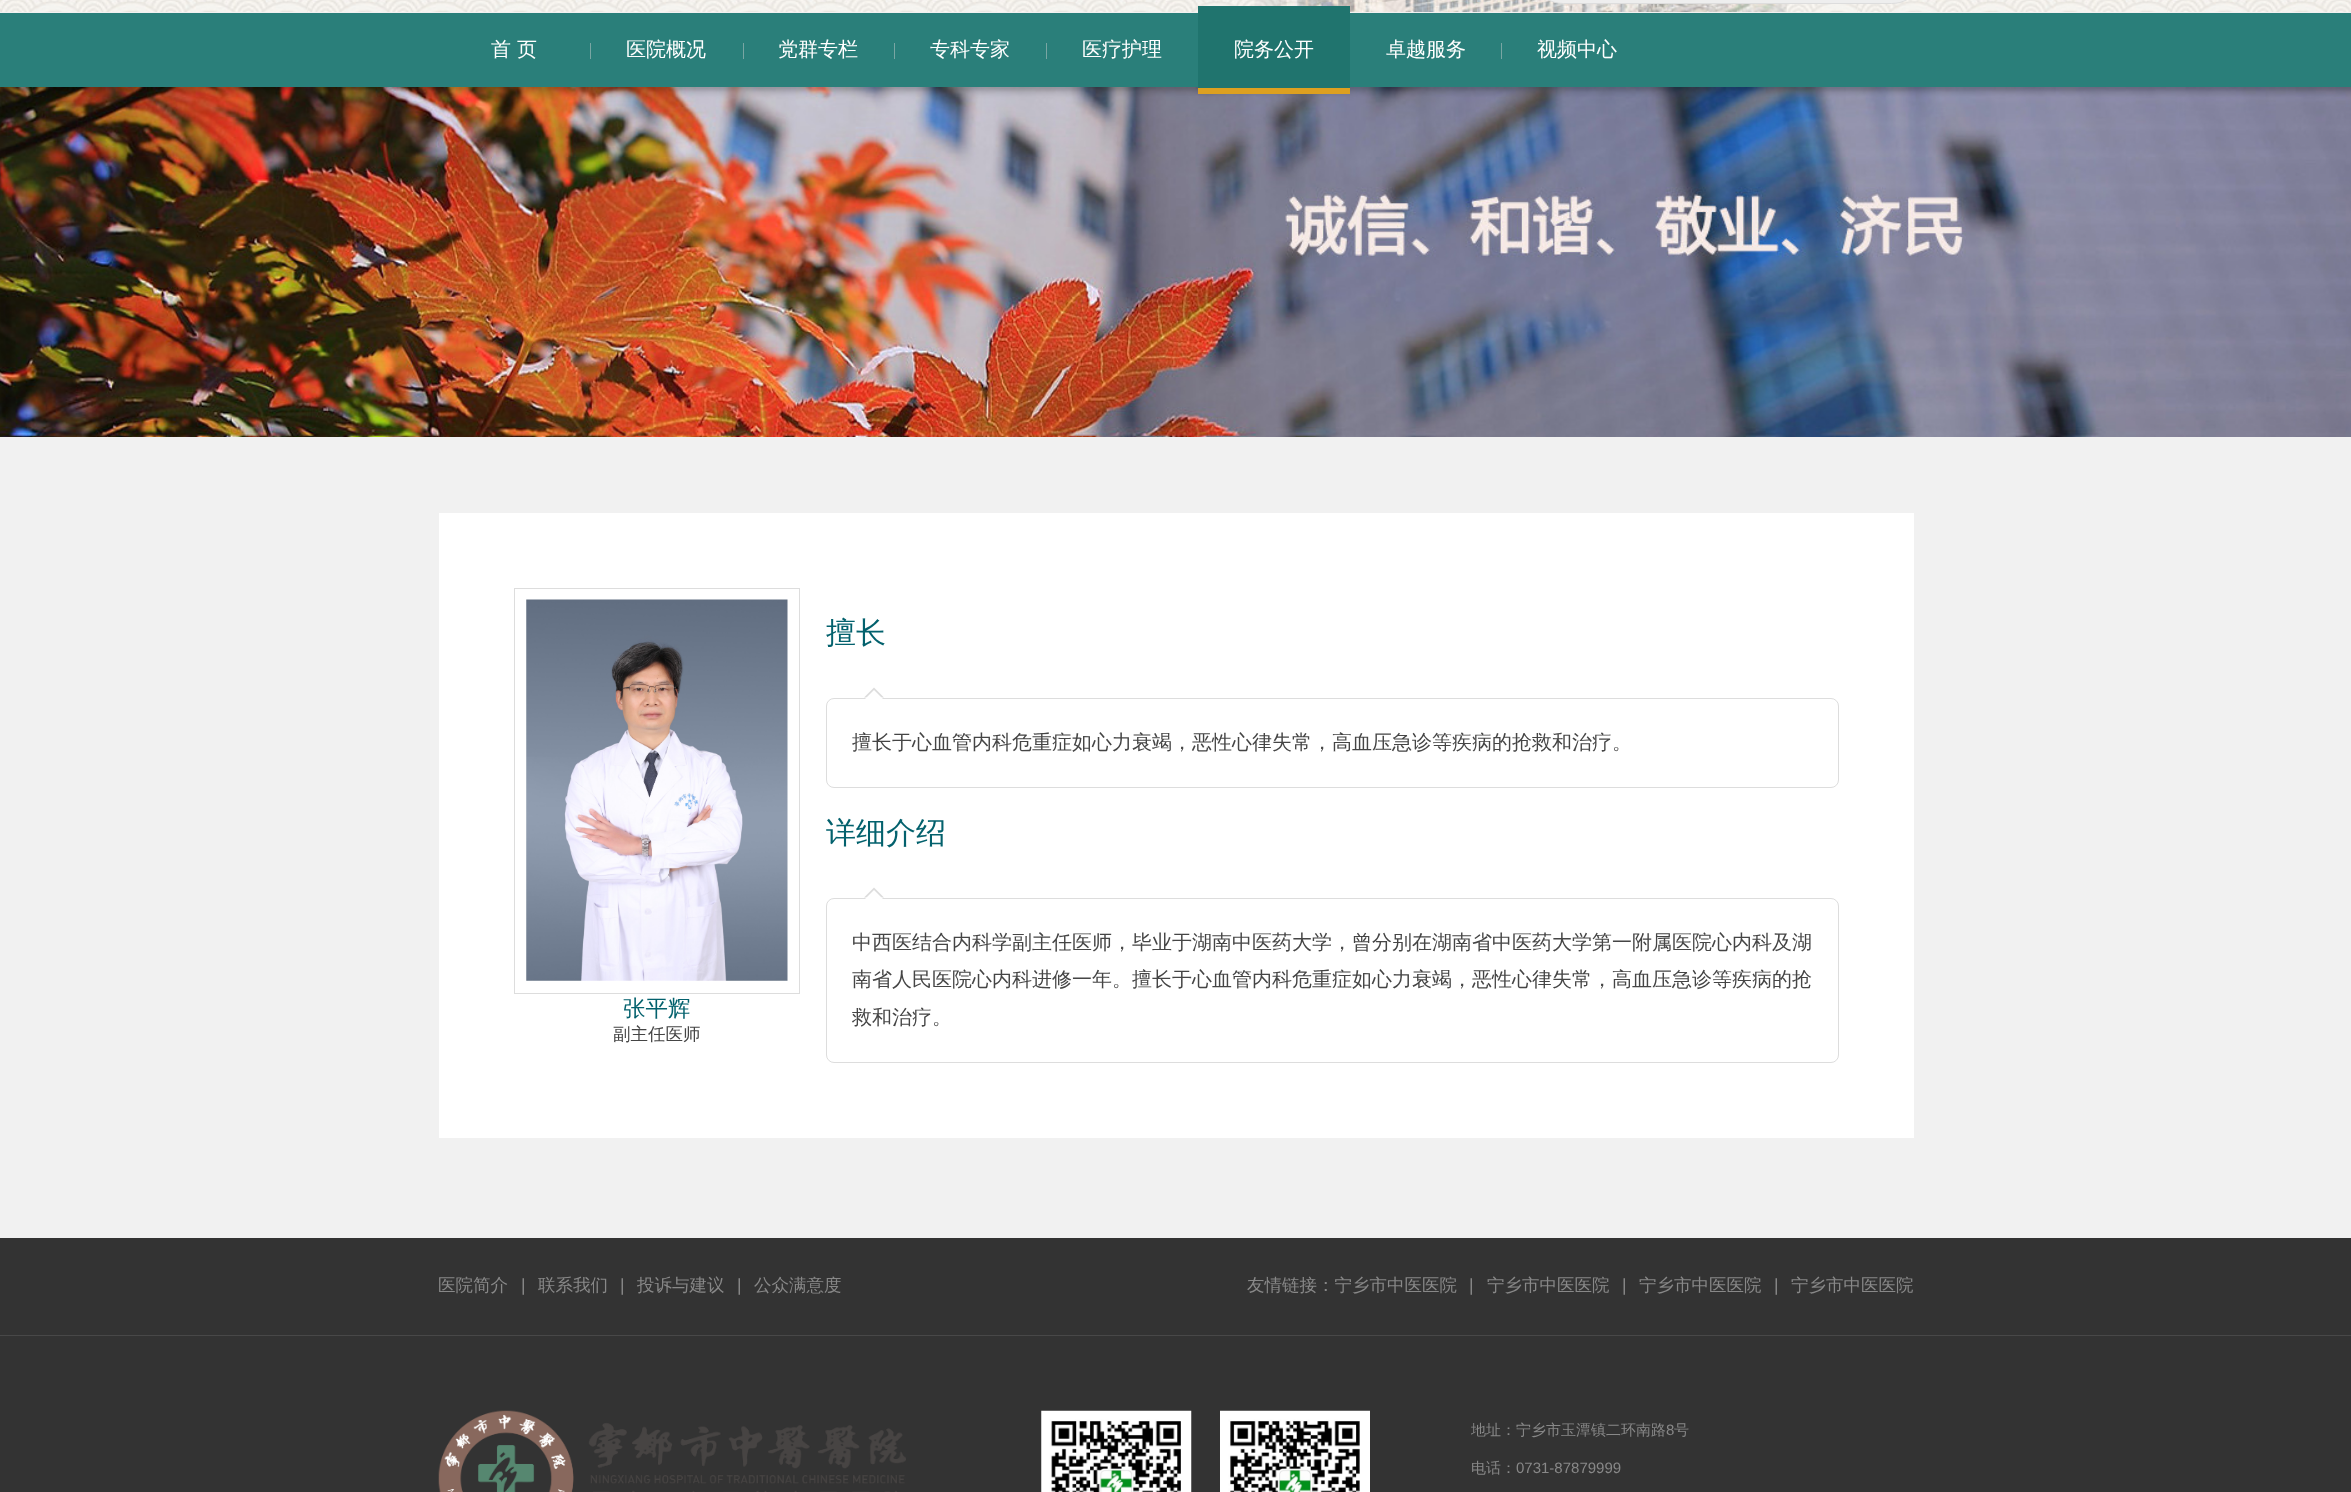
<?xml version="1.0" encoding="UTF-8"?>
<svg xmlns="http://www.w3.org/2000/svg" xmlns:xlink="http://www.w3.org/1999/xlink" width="2351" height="1492">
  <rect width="100%" height="100%" fill="#f1f1f1" />
  <image x="0" y="0" width="2351" height="12" xlink:href="image1.png" />
  <rect x="1541.5" y="-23.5" width="372" height="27" rx="22" fill="#eeeeee" stroke="#dddddd" />
  <rect y="13" width="2351" height="74" fill="#2a7f7a" />
  <rect x="590" y="43" width="1" height="16" fill="#79a6a3" />
  <rect x="743" y="43" width="1" height="16" fill="#79a6a3" />
  <rect x="894" y="43" width="1" height="16" fill="#79a6a3" />
  <rect x="1046" y="43" width="1" height="16" fill="#79a6a3" />
  <image x="0" y="87" width="2351" height="350" xlink:href="image2.png" />
  <rect x="1198" y="6" width="152" height="82" fill="#20746e" />
  <rect x="1198" y="88" width="152" height="6" fill="#dda020" />
  <rect x="1501" y="43" width="1" height="16" fill="#79a6a3" />
  <rect x="439" y="513" width="1475" height="625" fill="#ffffff" />
  <rect x="514.5" y="588.5" width="285" height="405" fill="none" stroke="#dddddd" />
  <image x="526" y="599" width="262" height="382" xlink:href="image3.png" />
  <path d="M 884 697.5 h -20 l 10 -10 z" fill="#dddddd" />
  <rect x="826.5" y="698.5" width="1012" height="89" rx="7.5" fill="none" stroke="#dddddd" />
  <path d="M 884 700 h -20 l 10 -10 z" fill="#ffffff" />
  <path d="M 884 897.5 h -20 l 10 -10 z" fill="#dddddd" />
  <rect x="826.5" y="898.5" width="1012" height="164" rx="7.5" fill="none" stroke="#dddddd" />
  <path d="M 884 900 h -20 l 10 -10 z" fill="#ffffff" />
  <rect y="1238" width="2351" height="254" fill="#333333" />
  <rect y="1335" width="2351" height="1" fill="#484848" />
  <image x="438" y="1410" width="468" height="82" xlink:href="image4.png" />
  <image x="1041" y="1410" width="151" height="82" xlink:href="image5.png" />
  <image x="1220" y="1410" width="150" height="82" xlink:href="image6.png" />
  <text x="491" y="56" style="font-family: WenQuanYi Zen Hei; font-size: 20px; font-weight: 500; fill: #ffffff">首 页</text>
  <text x="626" y="56" style="font-family: WenQuanYi Zen Hei; font-size: 20px; font-weight: 500; fill: #ffffff">医院概况</text>
  <text x="778" y="56" style="font-family: WenQuanYi Zen Hei; font-size: 20px; font-weight: 500; fill: #ffffff">党群专栏</text>
  <text x="930" y="56" style="font-family: WenQuanYi Zen Hei; font-size: 20px; font-weight: 500; fill: #ffffff">专科专家</text>
  <text x="1082" y="56" style="font-family: WenQuanYi Zen Hei; font-size: 20px; font-weight: 500; fill: #ffffff">医疗护理</text>
  <text x="1234" y="56" style="font-family: WenQuanYi Zen Hei; font-size: 20px; font-weight: 500; fill: #ffffff">院务公开</text>
  <text x="1386" y="56" style="font-family: WenQuanYi Zen Hei; font-size: 20px; font-weight: 500; fill: #ffffff">卓越服务</text>
  <text x="1537" y="56" style="font-family: WenQuanYi Zen Hei; font-size: 20px; font-weight: 500; fill: #ffffff">视频中心</text>
  <text x="623" y="1016" style="font-family: WenQuanYi Zen Hei; font-size: 22.5px; font-weight: 500; fill: #03616d">张平辉</text>
  <text x="613" y="1040" style="font-family: WenQuanYi Zen Hei; font-size: 17.5px; font-weight: 500; fill: #454545">副主任医师</text>
  <text x="826" y="643" style="font-family: WenQuanYi Zen Hei; font-size: 30px; font-weight: 500; fill: #03616d">擅长</text>
  <text x="852" y="749" style="font-family: WenQuanYi Zen Hei; font-size: 20px; font-weight: 500; fill: #454545">擅长于心血管内科危重症如心力衰竭，恶性心律失常，高血压急诊等疾病的抢救和治疗。</text>
  <text x="826" y="843" style="font-family: WenQuanYi Zen Hei; font-size: 30px; font-weight: 500; fill: #03616d">详细介绍</text>
  <text x="852" y="949" style="font-family: WenQuanYi Zen Hei; font-size: 20px; font-weight: 500; fill: #454545">中西医结合内科学副主任医师，毕业于湖南中医药大学，曾分别在湖南省中医药大学第一附属医院心内科及湖</text>
  <text x="852" y="986" style="font-family: WenQuanYi Zen Hei; font-size: 20px; font-weight: 500; fill: #454545">南省人民医院心内科进修一年。擅长于心血管内科危重症如心力衰竭，恶性心律失常，高血压急诊等疾病的抢</text>
  <text x="852" y="1024" style="font-family: WenQuanYi Zen Hei; font-size: 20px; font-weight: 500; fill: #454545">救和治疗。</text>
  <text x="438" y="1291" style="font-family: WenQuanYi Zen Hei; font-size: 17.5px; font-weight: 500; fill: #888888">医院简介</text>
  <text x="521" y="1291" style="font-family: Liberation Sans; font-size: 17.5px; fill: #888888">|</text>
  <text x="538" y="1291" style="font-family: WenQuanYi Zen Hei; font-size: 17.5px; font-weight: 500; fill: #888888">联系我们</text>
  <text x="620" y="1291" style="font-family: Liberation Sans; font-size: 17.5px; fill: #888888">|</text>
  <text x="637" y="1291" style="font-family: WenQuanYi Zen Hei; font-size: 17.5px; font-weight: 500; fill: #888888">投诉与建议</text>
  <text x="737" y="1291" style="font-family: Liberation Sans; font-size: 17.5px; fill: #888888">|</text>
  <text x="754" y="1291" style="font-family: WenQuanYi Zen Hei; font-size: 17.5px; font-weight: 500; fill: #888888">公众满意度</text>
  <text x="1247" y="1291" style="font-family: WenQuanYi Zen Hei; font-size: 17.5px; font-weight: 500; fill: #888888">友情链接：宁乡市中医医院</text>
  <text x="1469" y="1291" style="font-family: Liberation Sans; font-size: 17.5px; fill: #888888">|</text>
  <text x="1487" y="1291" style="font-family: WenQuanYi Zen Hei; font-size: 17.5px; font-weight: 500; fill: #888888">宁乡市中医医院</text>
  <text x="1622" y="1291" style="font-family: Liberation Sans; font-size: 17.5px; fill: #888888">|</text>
  <text x="1639" y="1291" style="font-family: WenQuanYi Zen Hei; font-size: 17.5px; font-weight: 500; fill: #888888">宁乡市中医医院</text>
  <text x="1774" y="1291" style="font-family: Liberation Sans; font-size: 17.5px; fill: #888888">|</text>
  <text x="1791" y="1291" style="font-family: WenQuanYi Zen Hei; font-size: 17.5px; font-weight: 500; fill: #888888">宁乡市中医医院</text>
  <text x="1471" y="1435" style="font-family: WenQuanYi Zen Hei; font-size: 15px; font-weight: 500; fill: #888888">地址：宁乡市玉潭镇二环南路</text>
  <text x="1666" y="1435" style="font-family: Liberation Sans; font-size: 15px; fill: #888888">8</text>
  <text x="1674" y="1435" style="font-family: WenQuanYi Zen Hei; font-size: 15px; font-weight: 500; fill: #888888">号</text>
  <text x="1471" y="1473" style="font-family: WenQuanYi Zen Hei; font-size: 15px; font-weight: 500; fill: #888888">电话：</text>
  <text x="1516" y="1473" style="font-family: Liberation Sans; font-size: 15px; fill: #888888">0731-87879999</text>
</svg>
